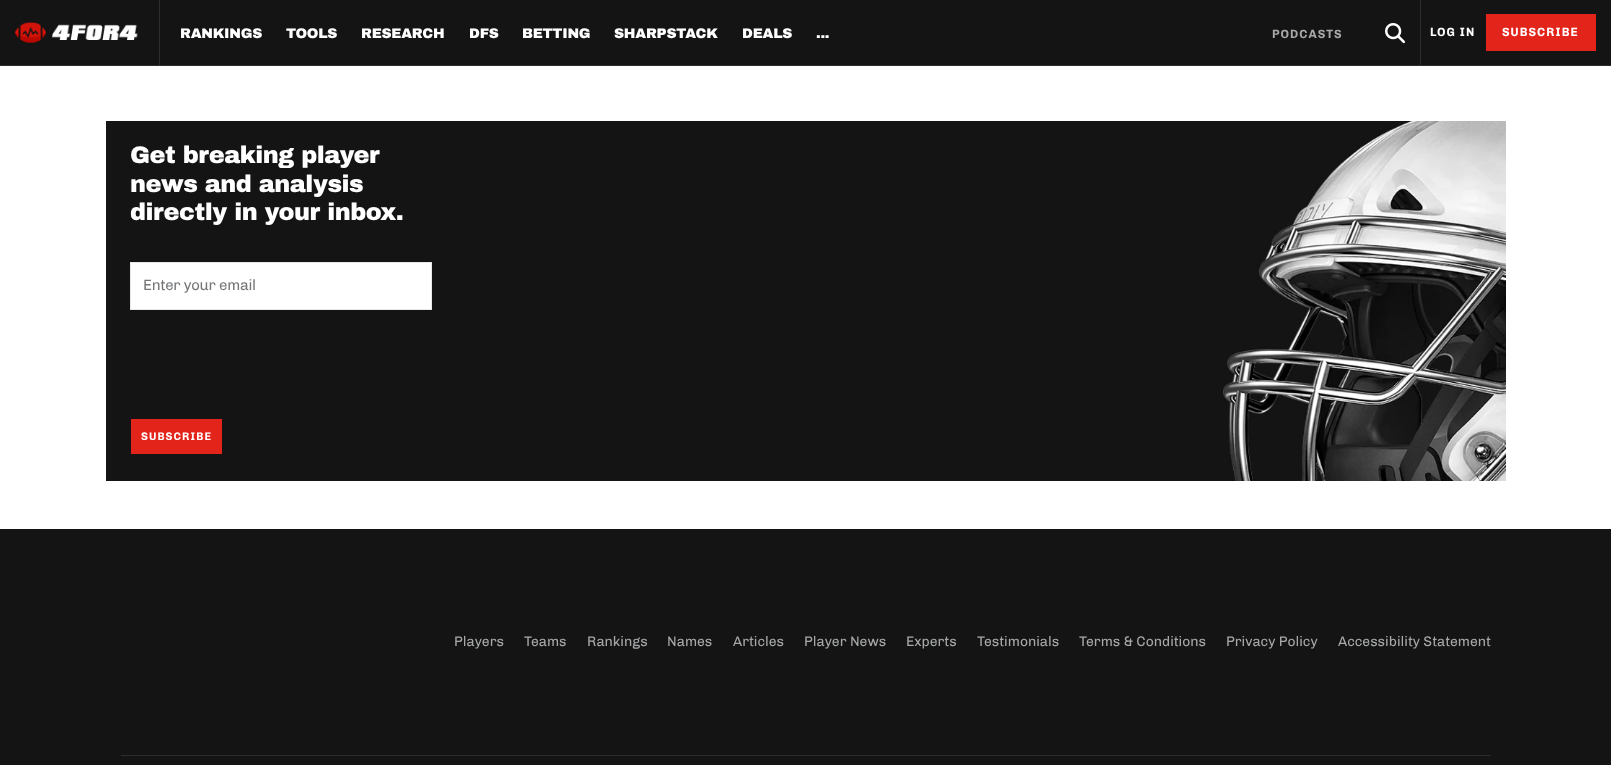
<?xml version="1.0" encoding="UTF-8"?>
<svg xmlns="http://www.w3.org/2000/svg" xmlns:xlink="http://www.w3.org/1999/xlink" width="1611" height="765">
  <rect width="100%" height="100%" fill="#ffffff" />
  <rect width="1611" height="65" fill="#141414" />
  <rect y="65" width="1611" height="1" fill="#2d2d2d" />
  <image x="15" y="22" width="123" height="21" xlink:href="image1.png" />
  <rect x="159" width="1" height="65" fill="#2d2d2d" />
  <image x="1385" y="23" width="20" height="21" xlink:href="image2.png" />
  <rect x="1420" width="1" height="66" fill="#2d2d2d" />
  <rect x="1486" y="14" width="110" height="37" fill="#e3241a" />
  <rect x="106" y="121" width="1117" height="360" fill="#141414" />
  <image x="1223" y="121" width="283" height="360" xlink:href="image3.png" />
  <rect x="130.5" y="262.5" width="301" height="47" fill="#ffffff" stroke="#e7e7e7" />
  <rect x="131" y="419" width="91" height="35" fill="#e3241a" />
  <rect y="529" width="1611" height="236" fill="#141414" />
  <rect x="121" y="755" width="1370" height="1" fill="#2d2d2d" />
  <text x="180" y="38" style="font-family: archivo; font-size: 14px; font-weight: 900; letter-spacing: -0.25px; fill: #ffffff">RANKINGS</text>
  <text x="286" y="38" style="font-family: archivo; font-size: 14px; font-weight: 900; letter-spacing: -0.25px; fill: #ffffff">TOOLS</text>
  <text x="361" y="38" style="font-family: archivo; font-size: 14px; font-weight: 900; letter-spacing: -0.25px; fill: #ffffff">RESEARCH</text>
  <text x="469" y="38" style="font-family: archivo; font-size: 14px; font-weight: 900; letter-spacing: -0.25px; fill: #ffffff">DFS</text>
  <text x="522" y="38" style="font-family: archivo; font-size: 14px; font-weight: 900; letter-spacing: -0.25px; fill: #ffffff">BETTING</text>
  <text x="614" y="38" style="font-family: archivo; font-size: 14px; font-weight: 900; letter-spacing: -0.25px; fill: #ffffff">SHARPSTACK</text>
  <text x="742" y="38" style="font-family: archivo; font-size: 14px; font-weight: 900; letter-spacing: -0.25px; fill: #ffffff">DEALS</text>
  <text x="816" y="38" style="font-family: archivo; font-size: 14px; font-weight: 900; letter-spacing: -0.25px; fill: #ffffff">...</text>
  <text x="1272" y="38" style="font-family: chivo; font-size: 12px; font-weight: bold; letter-spacing: 1px; fill: #a6a8aa">PODCASTS</text>
  <text x="1430" y="36" style="font-family: chivo; font-size: 12px; font-weight: bold; letter-spacing: 1px; fill: #ffffff">LOG IN</text>
  <text x="1502" y="36" style="font-family: chivo; font-size: 12px; font-weight: bold; letter-spacing: 1px; fill: #ffffff">SUBSCRIBE</text>
  <text x="130" y="163" style="font-family: archivo; font-size: 24px; font-weight: 900; letter-spacing: -0.5px; fill: #ffffff">Get breaking player</text>
  <text x="130" y="192" style="font-family: archivo; font-size: 24px; font-weight: 900; letter-spacing: -0.5px; fill: #ffffff">news and analysis</text>
  <text x="130" y="220" style="font-family: archivo; font-size: 24px; font-weight: 900; letter-spacing: -0.5px; fill: #ffffff">directly in your inbox.</text>
  <text x="143" y="290" style="font-family: chivo; font-size: 15px; letter-spacing: -0.25px; fill: #757779">Enter your email</text>
  <text x="141" y="440" style="font-family: chivo; font-size: 11px; font-weight: bold; letter-spacing: 1px; fill: #ffffff">SUBSCRIBE</text>
  <text x="454" y="646" style="font-family: chivo; font-size: 14px; fill: #a6a8aa">Players</text>
  <text x="524" y="646" style="font-family: chivo; font-size: 14px; fill: #a6a8aa">Teams</text>
  <text x="587" y="646" style="font-family: chivo; font-size: 14px; fill: #a6a8aa">Rankings</text>
  <text x="667" y="646" style="font-family: chivo; font-size: 14px; fill: #a6a8aa">Names</text>
  <text x="733" y="646" style="font-family: chivo; font-size: 14px; fill: #a6a8aa">Articles</text>
  <text x="804" y="646" style="font-family: chivo; font-size: 14px; fill: #a6a8aa">Player News</text>
  <text x="906" y="646" style="font-family: chivo; font-size: 14px; fill: #a6a8aa">Experts</text>
  <text x="977" y="646" style="font-family: chivo; font-size: 14px; fill: #a6a8aa">Testimonials</text>
  <text x="1079" y="646" style="font-family: chivo; font-size: 14px; fill: #a6a8aa">Terms &amp; Conditions</text>
  <text x="1226" y="646" style="font-family: chivo; font-size: 14px; fill: #a6a8aa">Privacy Policy</text>
  <text x="1338" y="646" style="font-family: chivo; font-size: 14px; fill: #a6a8aa">Accessibility Statement</text>
</svg>
